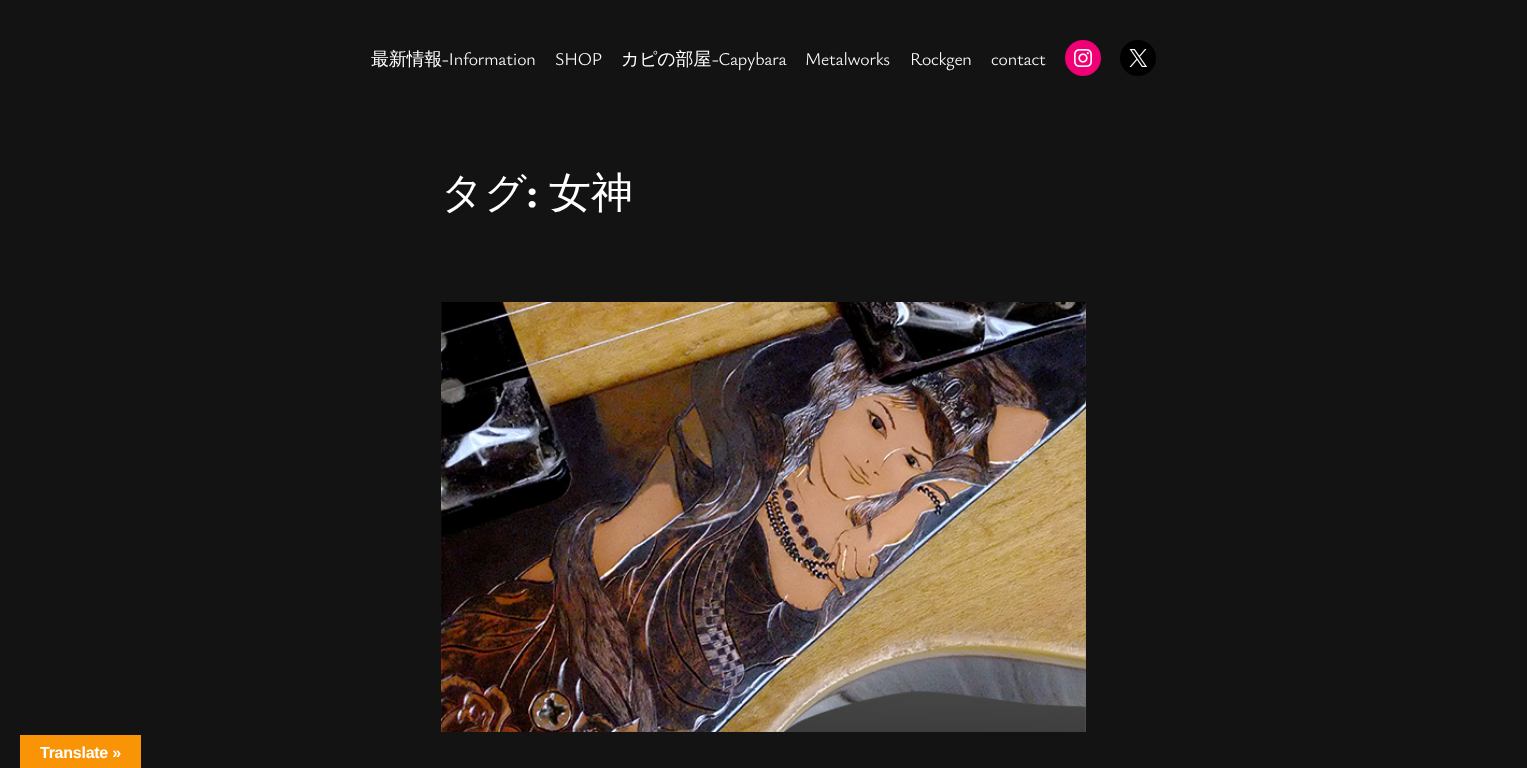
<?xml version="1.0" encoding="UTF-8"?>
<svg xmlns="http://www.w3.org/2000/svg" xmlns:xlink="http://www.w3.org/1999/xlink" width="1527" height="768">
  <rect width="100%" height="100%" fill="#131313" />
  <circle cx="1083" cy="58" r="18" fill="#f00075" />
  <image x="1074" y="49" width="18" height="18" xlink:href="image1.png" />
  <circle cx="1138" cy="58" r="18" fill="#000000" />
  <image x="1129" y="49" width="18" height="18" xlink:href="image2.png" />
  <image x="441" y="302" width="645" height="430" xlink:href="image3.png" />
  <rect x="20" y="735" width="121" height="33" fill="#f89406" />
  <text x="371" y="65" style="font-family: WenQuanYi Zen Hei; font-size: 18px; font-weight: 500; letter-spacing: -0.25px; fill: #ffffff">最新情報</text>
  <text x="442" y="65" style="font-family: Ysabeau Office; font-size: 18px; font-weight: 300; letter-spacing: -0.25px; fill: #ffffff">-Information</text>
  <text x="555" y="65" style="font-family: Ysabeau Office; font-size: 18px; font-weight: 300; letter-spacing: -0.25px; fill: #ffffff">SHOP</text>
  <text x="621" y="65" style="font-family: WenQuanYi Zen Hei; font-size: 18px; font-weight: 500; letter-spacing: -0.25px; fill: #ffffff">カピの部屋</text>
  <text x="712" y="65" style="font-family: Ysabeau Office; font-size: 18px; font-weight: 300; letter-spacing: -0.25px; fill: #ffffff">-Capybara</text>
  <text x="805" y="65" style="font-family: Ysabeau Office; font-size: 18px; font-weight: 300; letter-spacing: -0.25px; fill: #ffffff">Metalworks</text>
  <text x="910" y="65" style="font-family: Ysabeau Office; font-size: 18px; font-weight: 300; letter-spacing: -0.25px; fill: #ffffff">Rockgen</text>
  <text x="991" y="65" style="font-family: Ysabeau Office; font-size: 18px; font-weight: 300; letter-spacing: -0.25px; fill: #ffffff">contact</text>
  <text x="441" y="207" style="font-family: WenQuanYi Zen Hei; font-size: 42px; font-weight: 500; fill: #ffffff">タグ</text>
  <text x="526" y="207" style="font-family: Platypi; font-size: 42px; fill: #ffffff">:</text>
  <text x="549" y="207" style="font-family: WenQuanYi Zen Hei; font-size: 42px; font-weight: 500; fill: #ffffff">女神</text>
  <text x="40" y="758" style="font-family: Liberation Sans; font-size: 16px; font-weight: bold; letter-spacing: -0.25px; fill: #ffffff">Translate »</text>
</svg>
